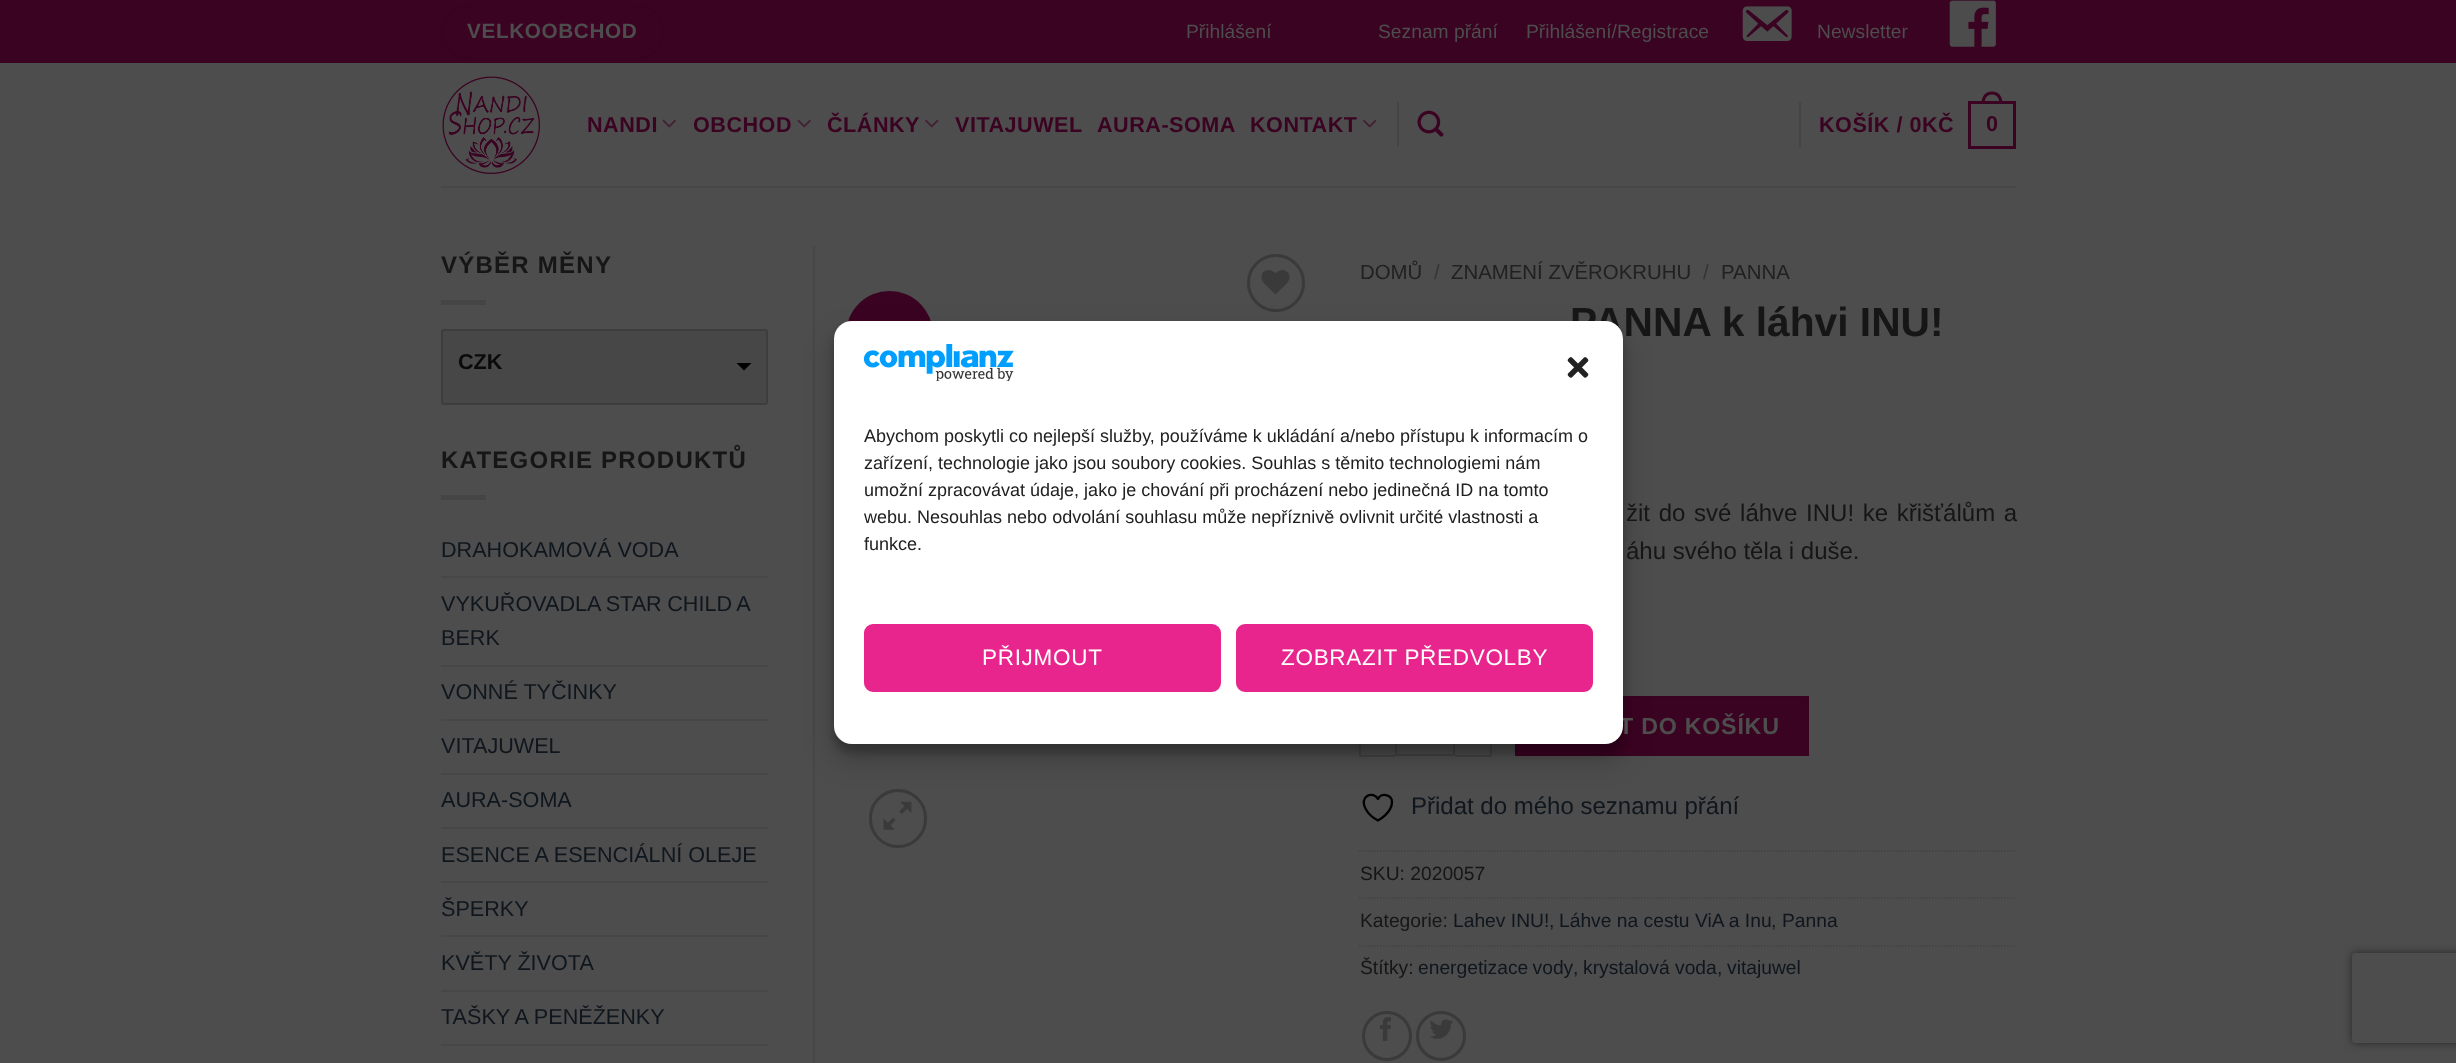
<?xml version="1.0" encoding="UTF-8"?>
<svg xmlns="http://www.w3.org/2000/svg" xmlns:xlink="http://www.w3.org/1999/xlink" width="2456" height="1063">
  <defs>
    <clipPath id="clip1"><path d="M 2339 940 h 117 v 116 h -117 z m 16 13 h 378 c 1.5 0 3 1.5 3 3 v 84 c 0 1.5 -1.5 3 -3 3 h -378 c -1.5 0 -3 -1.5 -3 -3 v -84 c 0 -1.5 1.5 -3 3 -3 z" clip-rule="evenodd" /></clipPath>
  </defs>
  <rect width="100%" height="100%" fill="#4d4d4d" />
  <rect width="2456" height="63" fill="#3b0322" />
  <rect x="442" y="6" width="222" height="52" rx="26" fill="none" stroke="#380320" stroke-width="2" />
  <image x="1742" y="6" width="50" height="35" xlink:href="image1.png" />
  <image x="1949" y="0" width="47" height="47" xlink:href="image2.png" />
  <image x="442" y="76" width="98" height="98" xlink:href="image3.png" />
  <image x="662" y="119" width="14" height="9" xlink:href="image4.png" />
  <image x="797" y="119" width="14" height="9" xlink:href="image4.png" />
  <image x="925" y="119" width="14" height="9" xlink:href="image5.png" />
  <image x="1363" y="119" width="14" height="9" xlink:href="image5.png" />
  <rect x="1397" y="102" width="2" height="45" fill="#454545" />
  <image x="1417" y="110" width="27" height="27" xlink:href="image6.png" />
  <rect x="1799" y="102" width="2" height="45" fill="#454545" />
  <rect x="1969.5" y="102.5" width="45" height="45" fill="none" stroke="#3b0322" stroke-width="3" />
  <path d="M 1992 91.5 c 7 0 10.5 5.5 10.5 12 h -21 c 0 -6.5 3.5 -12 10.5 -12 z m 0 3 c 5.5 0 7.5 4.5 7.5 9 h -15 c 0 -4.5 2 -9 7.5 -9 z" fill="#3b0322" fill-rule="evenodd" />
  <rect x="441" y="186" width="1575" height="2" fill="#474747" />
  <rect x="441" y="300" width="45" height="5" fill="#454545" />
  <rect x="442" y="330" width="325" height="74" rx="2" fill="#474747" stroke="#3d3d3d" stroke-width="2" />
  <path d="M 736.5 363 h 15 l -7.5 7.5 z" fill="#000000" />
  <rect x="441" y="495" width="45" height="5" fill="#454545" />
  <rect x="441" y="576" width="327" height="2" fill="#474747" />
  <rect x="441" y="665" width="327" height="2" fill="#474747" />
  <rect x="441" y="719" width="327" height="2" fill="#474747" />
  <rect x="441" y="773" width="327" height="2" fill="#474747" />
  <rect x="441" y="827" width="327" height="2" fill="#474747" />
  <rect x="441" y="881" width="327" height="2" fill="#474747" />
  <rect x="441" y="935" width="327" height="2" fill="#474747" />
  <rect x="441" y="990" width="327" height="2" fill="#474747" />
  <rect x="441" y="1044" width="327" height="2" fill="#474747" />
  <rect x="813" y="246" width="2" height="817" fill="#474747" />
  <circle cx="1276" cy="283" r="27.5" fill="none" stroke="#3a3a3a" stroke-width="3" />
  <image x="1261" y="270" width="29" height="24" xlink:href="image7.png" />
  <circle cx="889.5" cy="334.5" r="43.5" fill="#3b0322" />
  <rect x="870.5" y="790.5" width="55" height="56" rx="27.5" fill="none" stroke="#3a3a3a" stroke-width="3" />
  <image x="883" y="801" width="29" height="29" xlink:href="image8.png" />
  <rect x="1359" y="755" width="36" height="2" fill="#424242" />
  <rect x="1359" y="744" width="2" height="12" fill="#424242" />
  <rect x="1396" y="697" width="58" height="58" fill="none" stroke="#424242" stroke-width="2" />
  <rect x="1490" y="744" width="2" height="12" fill="#424242" />
  <rect x="1455" y="755" width="36" height="2" fill="#424242" />
  <rect x="1516" y="697" width="292" height="58" fill="#3b0322" stroke="#380320" stroke-width="2" />
  <path d="M 1392 802 c 0 -8 -11.5 -9.5 -14 -3 c -4 -8.5 -20 -3.5 -12 10.5 c 2.5 4.5 7 8.5 12 11 c 0 0 14 -7.5 14 -18.5 z" fill="none" stroke="#000000" stroke-width="2.3" stroke-linecap="round" stroke-linejoin="round" />
  <path d="M 1359 851 h 657" fill="none" stroke="#424242" stroke-width="1.5" stroke-dasharray="1.5 1.5" />
  <path d="M 1359 898 h 657" fill="none" stroke="#424242" stroke-width="1.5" stroke-dasharray="1.5 1.5" />
  <path d="M 1359 946 h 657" fill="none" stroke="#424242" stroke-width="1.5" stroke-dasharray="1.5 1.5" />
  <circle cx="1387" cy="1036" r="23.5" fill="none" stroke="#3a3a3a" stroke-width="3" />
  <image x="1380" y="1017" width="11" height="24" xlink:href="image9.png" />
  <circle cx="1441" cy="1036" r="23.5" fill="none" stroke="#3a3a3a" stroke-width="3" />
  <image x="1430" y="1019" width="23" height="20" xlink:href="image10.png" />
  <rect x="834" y="330" width="789" height="423" rx="18" fill="#000000" fill-opacity="0.23" filter="blur(4.5px)" />
  <rect x="834" y="336" width="789" height="423" rx="18" fill="#000000" fill-opacity="0.19" filter="blur(15px)" />
  <g clip-path="url(#clip1)">
    <rect x="2352" y="953" width="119" height="90" rx="3" fill="#262626" filter="blur(4px)" />
  </g>
  <text x="467" y="38" style="font-family: Liberation Sans; font-size: 20.75px; font-weight: bold; letter-spacing: 0.6px; fill: #4d4d4d">VELKOOBCHOD</text>
  <text x="1186" y="38" style="font-family: Liberation Sans; font-size: 19.25px; fill: #4d4d4d">Přihlášení</text>
  <text x="1378" y="38" style="font-family: Liberation Sans; font-size: 19.25px; fill: #4d4d4d">Seznam přání</text>
  <text x="1526" y="38" style="font-family: Liberation Sans; font-size: 19.25px; fill: #4d4d4d">Přihlášení/Registrace</text>
  <text x="1817" y="38" style="font-family: Liberation Sans; font-size: 19.25px; fill: #4d4d4d">Newsletter</text>
  <text x="587" y="132" style="font-family: Liberation Sans; font-size: 21.6px; font-weight: bold; letter-spacing: 0.5px; fill: #3b0322">NANDI</text>
  <text x="693" y="132" style="font-family: Liberation Sans; font-size: 21.6px; font-weight: bold; letter-spacing: 0.5px; fill: #3b0322">OBCHOD</text>
  <text x="827" y="132" style="font-family: Liberation Sans; font-size: 21.6px; font-weight: bold; letter-spacing: 0.5px; fill: #3b0322">ČLÁNKY</text>
  <text x="955" y="132" style="font-family: Liberation Sans; font-size: 21.6px; font-weight: bold; letter-spacing: 0.5px; fill: #3b0322">VITAJUWEL</text>
  <text x="1097" y="132" style="font-family: Liberation Sans; font-size: 21.6px; font-weight: bold; letter-spacing: 0.5px; fill: #3b0322">AURA-SOMA</text>
  <text x="1250" y="132" style="font-family: Liberation Sans; font-size: 21.6px; font-weight: bold; letter-spacing: 0.5px; fill: #3b0322">KONTAKT</text>
  <text x="1819" y="132" style="font-family: Liberation Sans; font-size: 21.6px; font-weight: bold; letter-spacing: 0.5px; fill: #3b0322">KOŠÍK / 0KČ</text>
  <text x="1986" y="131" style="font-family: Liberation Sans; font-size: 21.6px; font-weight: bold; letter-spacing: 0.5px; fill: #3b0322">0</text>
  <text x="441" y="273" style="font-family: Liberation Sans; font-size: 24px; font-weight: bold; letter-spacing: 1.25px; fill: #161616">VÝBĚR MĚNY</text>
  <text x="458" y="369" style="font-family: Liberation Sans; font-size: 21.6px; font-weight: bold; fill: #0a0a0a">CZK</text>
  <text x="441" y="468" style="font-family: Liberation Sans; font-size: 24px; font-weight: bold; letter-spacing: 1.25px; fill: #161616">KATEGORIE PRODUKTŮ</text>
  <text x="441" y="557" style="font-family: Liberation Sans; font-size: 21.6px; fill: #0f161d">DRAHOKAMOVÁ VODA</text>
  <text x="441" y="611" word-spacing="-0.5" style="font-family: Liberation Sans; font-size: 21.6px; fill: #0f161d">VYKUŘOVADLA STAR CHILD A</text>
  <text x="441" y="645" style="font-family: Liberation Sans; font-size: 21.6px; fill: #0f161d">BERK</text>
  <text x="441" y="699" style="font-family: Liberation Sans; font-size: 21.6px; fill: #0f161d">VONNÉ TYČINKY</text>
  <text x="441" y="753" style="font-family: Liberation Sans; font-size: 21.6px; fill: #0f161d">VITAJUWEL</text>
  <text x="441" y="807" style="font-family: Liberation Sans; font-size: 21.6px; fill: #0f161d">AURA-SOMA</text>
  <text x="441" y="862" style="font-family: Liberation Sans; font-size: 21.6px; fill: #0f161d">ESENCE A ESENCIÁLNÍ OLEJE</text>
  <text x="441" y="916" style="font-family: Liberation Sans; font-size: 21.6px; fill: #0f161d">ŠPERKY</text>
  <text x="441" y="970" style="font-family: Liberation Sans; font-size: 21.6px; fill: #0f161d">KVĚTY ŽIVOTA</text>
  <text x="441" y="1024" style="font-family: Liberation Sans; font-size: 21.6px; fill: #0f161d">TAŠKY A PENĚŽENKY</text>
  <text x="1360" y="279" style="font-family: Liberation Sans; font-size: 20.4px; fill: #212121">DOMŮ</text>
  <text x="1434" y="279" style="font-family: Liberation Sans; font-size: 20.4px; fill: #353535">/</text>
  <text x="1451" y="279" style="font-family: Liberation Sans; font-size: 20.4px; fill: #212121">ZNAMENÍ ZVĚROKRUHU</text>
  <text x="1703" y="279" style="font-family: Liberation Sans; font-size: 20.4px; fill: #353535">/</text>
  <text x="1721" y="279" style="font-family: Liberation Sans; font-size: 20.4px; fill: #212121">PANNA</text>
  <text x="1570" y="336" style="font-family: Liberation Sans; font-size: 40.75px; font-weight: bold; fill: #161616">PANNA k láhvi INU!</text>
  <text x="1626" y="521" word-spacing="2" style="font-family: Liberation Sans; font-size: 24px; fill: #161616">žit do své láhve INU! ke křišťálům a</text>
  <text x="1626" y="559" style="font-family: Liberation Sans; font-size: 24px; fill: #161616">áhu svého těla i duše.</text>
  <text x="1619" y="734" style="font-family: Liberation Sans; font-size: 23.25px; font-weight: bold; letter-spacing: 0.75px; fill: #4d4d4d">T DO KOŠÍKU</text>
  <text x="1411" y="814" style="font-family: Liberation Sans; font-size: 24px; fill: #0f161d">Přidat do mého seznamu přání</text>
  <text x="1360" y="880" style="font-family: Liberation Sans; font-size: 19.25px; fill: #161616">SKU: 2020057</text>
  <text x="1360" y="927" style="font-family: Liberation Sans; font-size: 19.25px; fill: #161616">Kategorie:</text>
  <text x="1453" y="927" style="font-family: Liberation Sans; font-size: 19.25px; fill: #0f161d">Lahev INU!</text>
  <text x="1549" y="927" style="font-family: Liberation Sans; font-size: 19.25px; fill: #161616">,</text>
  <text x="1559" y="927" style="font-family: Liberation Sans; font-size: 19.25px; fill: #0f161d">Láhve na cestu ViA a Inu</text>
  <text x="1771" y="927" style="font-family: Liberation Sans; font-size: 19.25px; fill: #161616">,</text>
  <text x="1782" y="927" style="font-family: Liberation Sans; font-size: 19.25px; fill: #0f161d">Panna</text>
  <text x="1360" y="974" style="font-family: Liberation Sans; font-size: 19.25px; fill: #161616">Štítky:</text>
  <text x="1418" y="974" word-spacing="-1" style="font-family: Liberation Sans; font-size: 19.25px; fill: #0f161d">energetizace vody</text>
  <text x="1573" y="974" style="font-family: Liberation Sans; font-size: 19.25px; fill: #161616">,</text>
  <text x="1583" y="974" style="font-family: Liberation Sans; font-size: 19.25px; fill: #0f161d">krystalová voda</text>
  <text x="1717" y="974" style="font-family: Liberation Sans; font-size: 19.25px; fill: #161616">,</text>
  <text x="1727" y="974" style="font-family: Liberation Sans; font-size: 19.25px; fill: #0f161d">vitajuwel</text>
  <rect x="834" y="321" width="789" height="423" rx="18" fill="#ffffff" />
  <image x="864" y="344" width="150" height="37" xlink:href="image11.png" />
  <image x="1567" y="357" width="22" height="21" xlink:href="image12.png" />
  <text x="864" y="442" style="font-family: Liberation Sans; font-size: 18px; fill: #212121">Abychom poskytli co nejlepší služby, používáme k ukládání a/nebo přístupu k informacím o</text>
  <text x="864" y="469" style="font-family: Liberation Sans; font-size: 18px; fill: #212121">zařízení, technologie jako jsou soubory cookies. Souhlas s těmito technologiemi nám</text>
  <text x="864" y="496" style="font-family: Liberation Sans; font-size: 18px; fill: #212121">umožní zpracovávat údaje, jako je chování při procházení nebo jedinečná ID na tomto</text>
  <text x="864" y="523" style="font-family: Liberation Sans; font-size: 18px; fill: #212121">webu. Nesouhlas nebo odvolání souhlasu může nepříznivě ovlivnit určité vlastnosti a</text>
  <text x="864" y="550" style="font-family: Liberation Sans; font-size: 18px; fill: #212121">funkce.</text>
  <rect x="865" y="625" width="355" height="66" rx="8" fill="#e8258d" stroke="#e8258d" stroke-width="2" />
  <text x="982" y="665" style="font-family: Liberation Sans; font-size: 22.5px; letter-spacing: 0.7px; fill: #ffffff">PŘIJMOUT</text>
  <rect x="1237" y="625" width="355" height="66" rx="8" fill="#e8258d" stroke="#e8258d" stroke-width="2" />
  <text x="1281" y="665" style="font-family: Liberation Sans; font-size: 22.5px; letter-spacing: 0.7px; fill: #ffffff">ZOBRAZIT PŘEDVOLBY</text>
</svg>
